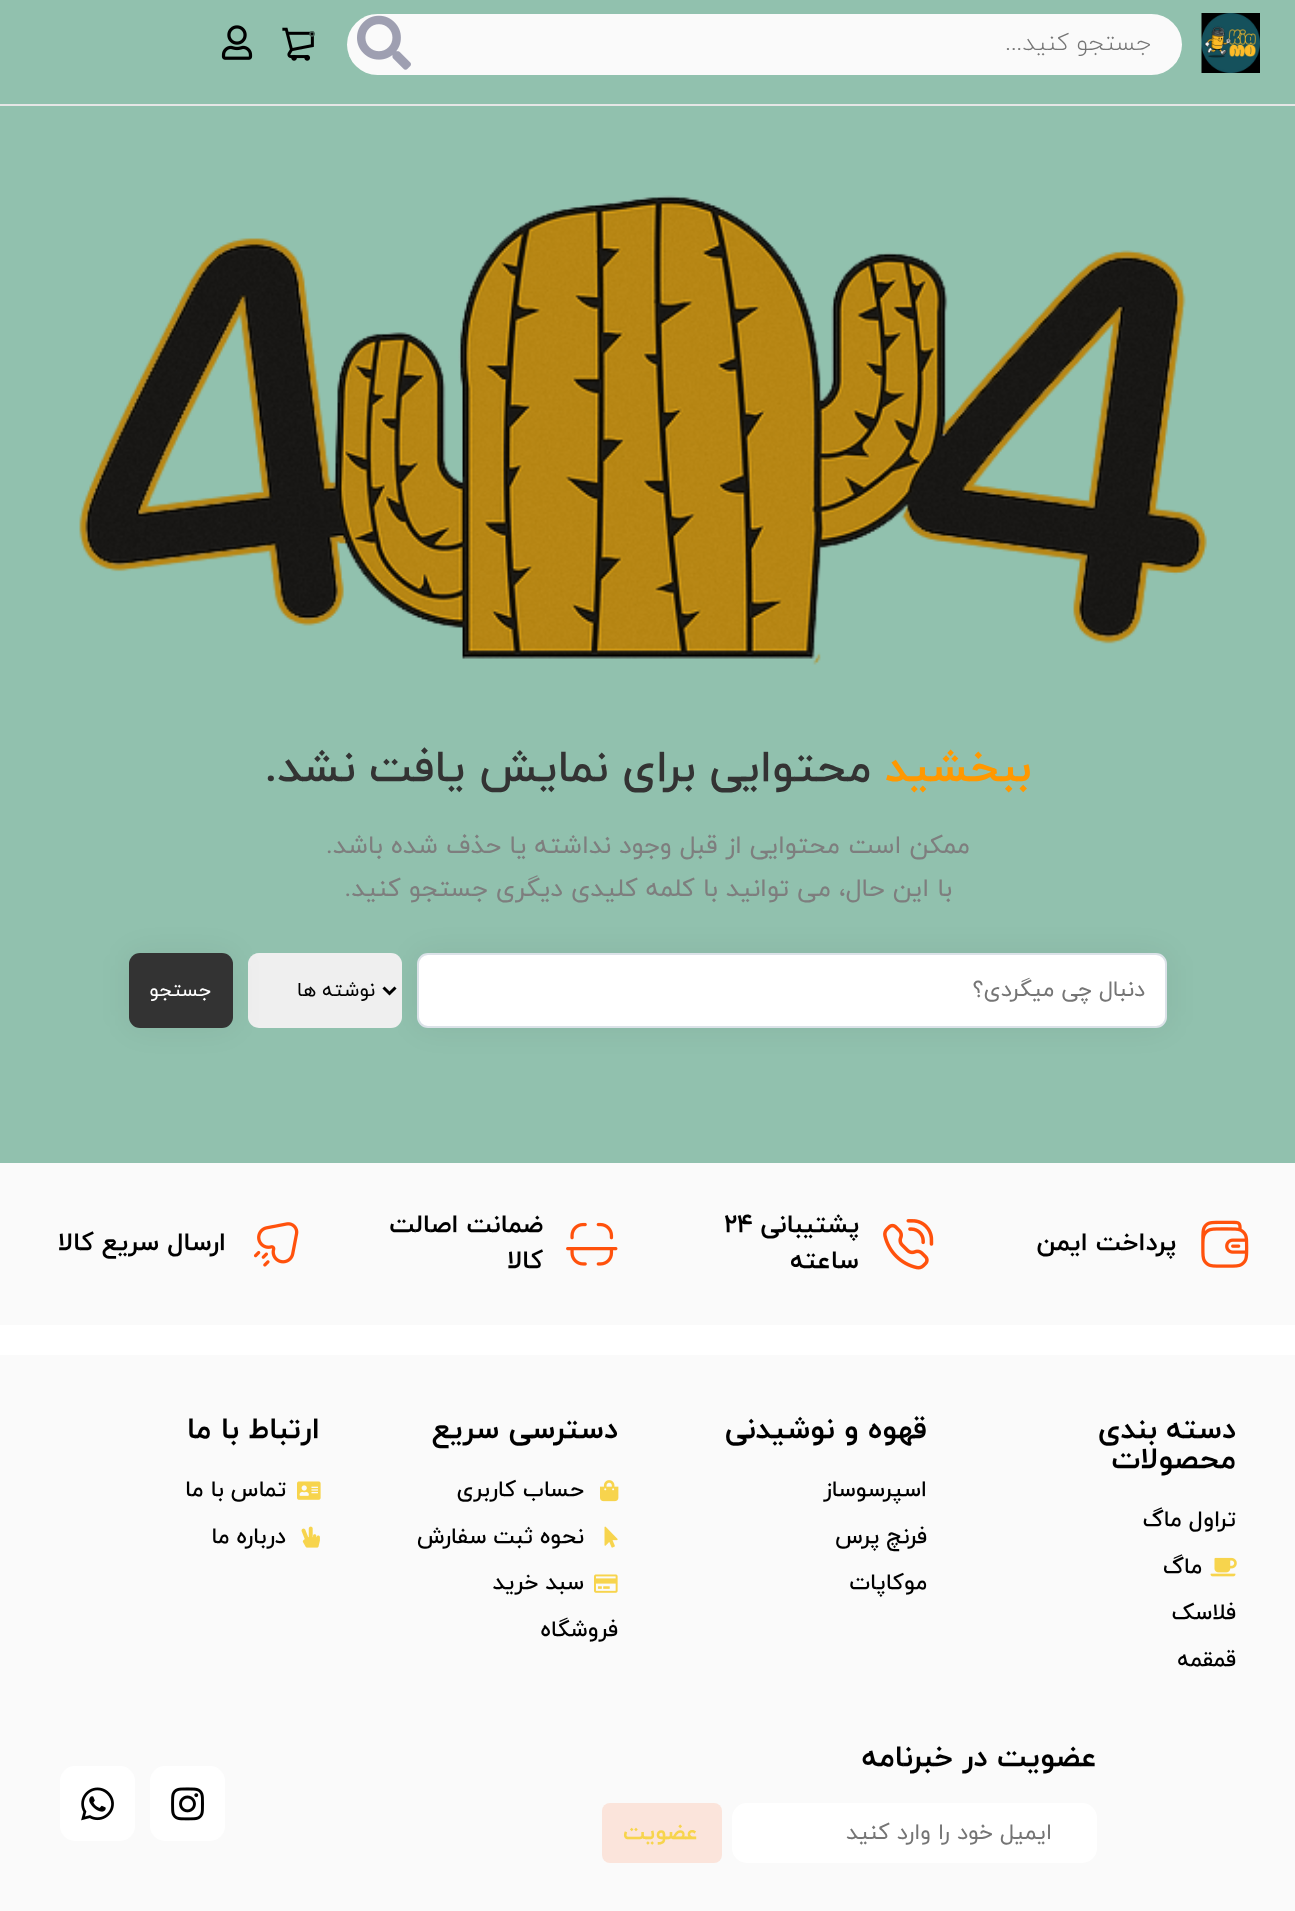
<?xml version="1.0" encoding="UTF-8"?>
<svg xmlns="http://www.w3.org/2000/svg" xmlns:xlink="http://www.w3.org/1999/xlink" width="1295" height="1911">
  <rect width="100%" height="100%" fill="#91c1ae" />
  <rect y="104" width="1295" height="2" fill="#e6e6e6" />
  <image x="1201" y="13" width="59" height="60" xlink:href="image1.png" />
  <rect x="347" y="14" width="835" height="61" rx="30.5" fill="#fafafa" />
  <image x="357" y="15" width="54" height="55" xlink:href="image2.png" />
  <image x="282" y="27" width="32" height="34" xlink:href="image3.png" />
  <image x="221" y="25" width="32" height="35" xlink:href="image4.png" />
  <image x="79" y="195" width="1128" height="470" xlink:href="image5.png" />
  <rect x="417" y="953" width="750" height="75" rx="11" fill="#000000" fill-opacity="0.06" filter="blur(15px)" />
  <rect x="418" y="954" width="748" height="73" rx="10" fill="#ffffff" stroke="#dbe2e8" stroke-width="2" />
  <rect x="248" y="953" width="154" height="75" rx="11" fill="#efefef" />
  <path d="M 383.5 987.5 l 6 6 l 6 -6" fill="none" stroke="#000000" stroke-width="3" />
  <rect x="129" y="953" width="104" height="75" rx="11" fill="#000000" fill-opacity="0.06" filter="blur(15px)" />
  <rect x="129" y="953" width="104" height="75" rx="11" fill="#333333" />
  <rect y="1325" width="1295" height="30" fill="#ffffff" />
  <rect y="1163" width="1295" height="162" fill="#fafafa" />
  <image x="1201" y="1220" width="48" height="48" xlink:href="image6.png" />
  <image x="883" y="1219" width="51" height="51" xlink:href="image7.png" />
  <image x="566" y="1222" width="52" height="44" xlink:href="image8.png" />
  <image x="253" y="1222" width="46" height="45" xlink:href="image9.png" />
  <rect y="1355" width="1295" height="556" fill="#fafafa" />
  <image x="1210" y="1557" width="27" height="20" xlink:href="image10.png" />
  <image x="600" y="1480" width="19" height="22" xlink:href="image11.png" />
  <image x="604" y="1526" width="14" height="22" xlink:href="image12.png" />
  <image x="594" y="1574" width="24" height="19" xlink:href="image13.png" />
  <image x="297" y="1481" width="24" height="19" xlink:href="image14.png" />
  <image x="301" y="1526" width="19" height="22" xlink:href="image15.png" />
  <rect x="732" y="1803" width="365" height="60" rx="15" fill="#ffffff" />
  <rect x="602" y="1803" width="120" height="60" rx="8" fill="#fbe4db" />
  <rect x="150" y="1766" width="75" height="75" rx="15" fill="#ffffff" />
  <image x="171" y="1787" width="33" height="34" xlink:href="image16.png" />
  <rect x="60" y="1766" width="75" height="75" rx="15" fill="#ffffff" />
  <image x="81" y="1787" width="33" height="34" xlink:href="image17.png" />
  <text x="1151" y="50" style="font-family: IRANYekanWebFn; font-size: 24px; font-weight: 300; direction: rtl; fill: #757575">جستجو کنید...</text>
  <text x="308" y="38" style="font-family: IRANYekanWebFn; font-size: 16px; font-weight: 500; fill: #465e55">0</text>
  <text x="1031" y="781" style="font-family: IRANYekanWebFn; font-size: 45px; font-weight: bold; direction: rtl; fill: #ff9800">ببخشید</text>
  <text x="871" y="781" style="font-family: IRANYekanWebFn; font-size: 45px; font-weight: 500; direction: rtl; fill: #333333">محتوایی برای نمایش یافت نشد.</text>
  <text x="970" y="853" style="font-family: IRANYekanWebFn; font-size: 25.5px; direction: rtl; fill: #7e7e7e">ممکن است محتوایی از قبل وجود نداشته یا حذف شده باشد.</text>
  <text x="952" y="896" style="font-family: IRANYekanWebFn; font-size: 25.5px; direction: rtl; fill: #7e7e7e">با این حال، می توانید با کلمه کلیدی دیگری جستجو کنید.</text>
  <text x="1145" y="996" style="font-family: IRANYekanWebFn; font-size: 22.5px; direction: rtl; fill: #757575">دنبال چی میگردی؟</text>
  <text x="375" y="996" style="font-family: IRANYekanWebFn; font-size: 20px; direction: rtl; fill: #000000">نوشته ها</text>
  <text x="211" y="996" style="font-family: IRANYekanWebFn; font-size: 20px; direction: rtl; fill: #ffffff">جستجو</text>
  <text x="1176" y="1250" style="font-family: IRANYekanWebFn; font-size: 25.5px; font-weight: bold; direction: rtl; fill: #000000">پرداخت ایمن</text>
  <text x="859" y="1232" style="font-family: IRANYekanWebFn; font-size: 25.5px; font-weight: bold; direction: rtl; fill: #000000">پشتیبانی</text>
  <text x="724" y="1232" style="font-family: IRANYekanWebFn; font-size: 25.5px; font-weight: bold; fill: #000000">24</text>
  <text x="859" y="1268" style="font-family: IRANYekanWebFn; font-size: 25.5px; font-weight: bold; direction: rtl; fill: #000000">ساعته</text>
  <text x="543" y="1232" style="font-family: IRANYekanWebFn; font-size: 25.5px; font-weight: bold; direction: rtl; fill: #000000">ضمانت اصالت</text>
  <text x="543" y="1268" style="font-family: IRANYekanWebFn; font-size: 25.5px; font-weight: bold; direction: rtl; fill: #000000">کالا</text>
  <text x="226" y="1250" style="font-family: IRANYekanWebFn; font-size: 25.5px; font-weight: bold; direction: rtl; fill: #000000">ارسال سریع کالا</text>
  <text x="1236" y="1438" style="font-family: IRANYekanWebFn; font-size: 30px; font-weight: bold; direction: rtl; fill: #000000">دسته بندی</text>
  <text x="1236" y="1468" style="font-family: IRANYekanWebFn; font-size: 30px; font-weight: bold; direction: rtl; fill: #000000">محصولات</text>
  <text x="1236" y="1526" style="font-family: IRANYekanWebFn; font-size: 22.5px; font-weight: 500; direction: rtl; fill: #000000">تراول ماگ</text>
  <text x="1202" y="1573" style="font-family: IRANYekanWebFn; font-size: 22.5px; font-weight: 500; direction: rtl; fill: #000000">ماگ</text>
  <text x="1236" y="1619" style="font-family: IRANYekanWebFn; font-size: 22.5px; font-weight: 500; direction: rtl; fill: #000000">فلاسک</text>
  <text x="1236" y="1666" style="font-family: IRANYekanWebFn; font-size: 22.5px; font-weight: 500; direction: rtl; fill: #000000">قمقمه</text>
  <text x="927" y="1438" style="font-family: IRANYekanWebFn; font-size: 30px; font-weight: bold; direction: rtl; fill: #000000">قهوه و نوشیدنی</text>
  <text x="927" y="1496" style="font-family: IRANYekanWebFn; font-size: 22.5px; font-weight: 500; direction: rtl; fill: #000000">اسپرسوساز</text>
  <text x="927" y="1543" style="font-family: IRANYekanWebFn; font-size: 22.5px; font-weight: 500; direction: rtl; fill: #000000">فرنچ پرس</text>
  <text x="927" y="1589" style="font-family: IRANYekanWebFn; font-size: 22.5px; font-weight: 500; direction: rtl; fill: #000000">موکاپات</text>
  <text x="618" y="1438" style="font-family: IRANYekanWebFn; font-size: 30px; font-weight: bold; direction: rtl; fill: #000000">دسترسی سریع</text>
  <text x="584" y="1496" style="font-family: IRANYekanWebFn; font-size: 22.5px; font-weight: 500; direction: rtl; fill: #000000">حساب کاربری</text>
  <text x="584" y="1543" style="font-family: IRANYekanWebFn; font-size: 22.5px; font-weight: 500; direction: rtl; fill: #000000">نحوه ثبت سفارش</text>
  <text x="584" y="1589" style="font-family: IRANYekanWebFn; font-size: 22.5px; font-weight: 500; direction: rtl; fill: #000000">سبد خرید</text>
  <text x="618" y="1636" style="font-family: IRANYekanWebFn; font-size: 22.5px; font-weight: 500; direction: rtl; fill: #000000">فروشگاه</text>
  <text x="320" y="1438" style="font-family: IRANYekanWebFn; font-size: 30px; font-weight: bold; direction: rtl; fill: #000000">ارتباط با ما</text>
  <text x="286" y="1496" style="font-family: IRANYekanWebFn; font-size: 22.5px; font-weight: 500; direction: rtl; fill: #000000">تماس با ما</text>
  <text x="286" y="1543" style="font-family: IRANYekanWebFn; font-size: 22.5px; font-weight: 500; direction: rtl; fill: #000000">درباره ما</text>
  <text x="1097" y="1766" style="font-family: IRANYekanWebFn; font-size: 30px; font-weight: bold; direction: rtl; fill: #000000">عضویت در خبرنامه</text>
  <text x="1052" y="1839" style="font-family: IRANYekanWebFn; font-size: 22.5px; direction: rtl; fill: #757575">ایمیل خود را وارد کنید</text>
  <text x="698" y="1839" style="font-family: IRANYekanWebFn; font-size: 22.5px; font-weight: bold; direction: rtl; fill: #f7d44d">عضویت</text>
</svg>
